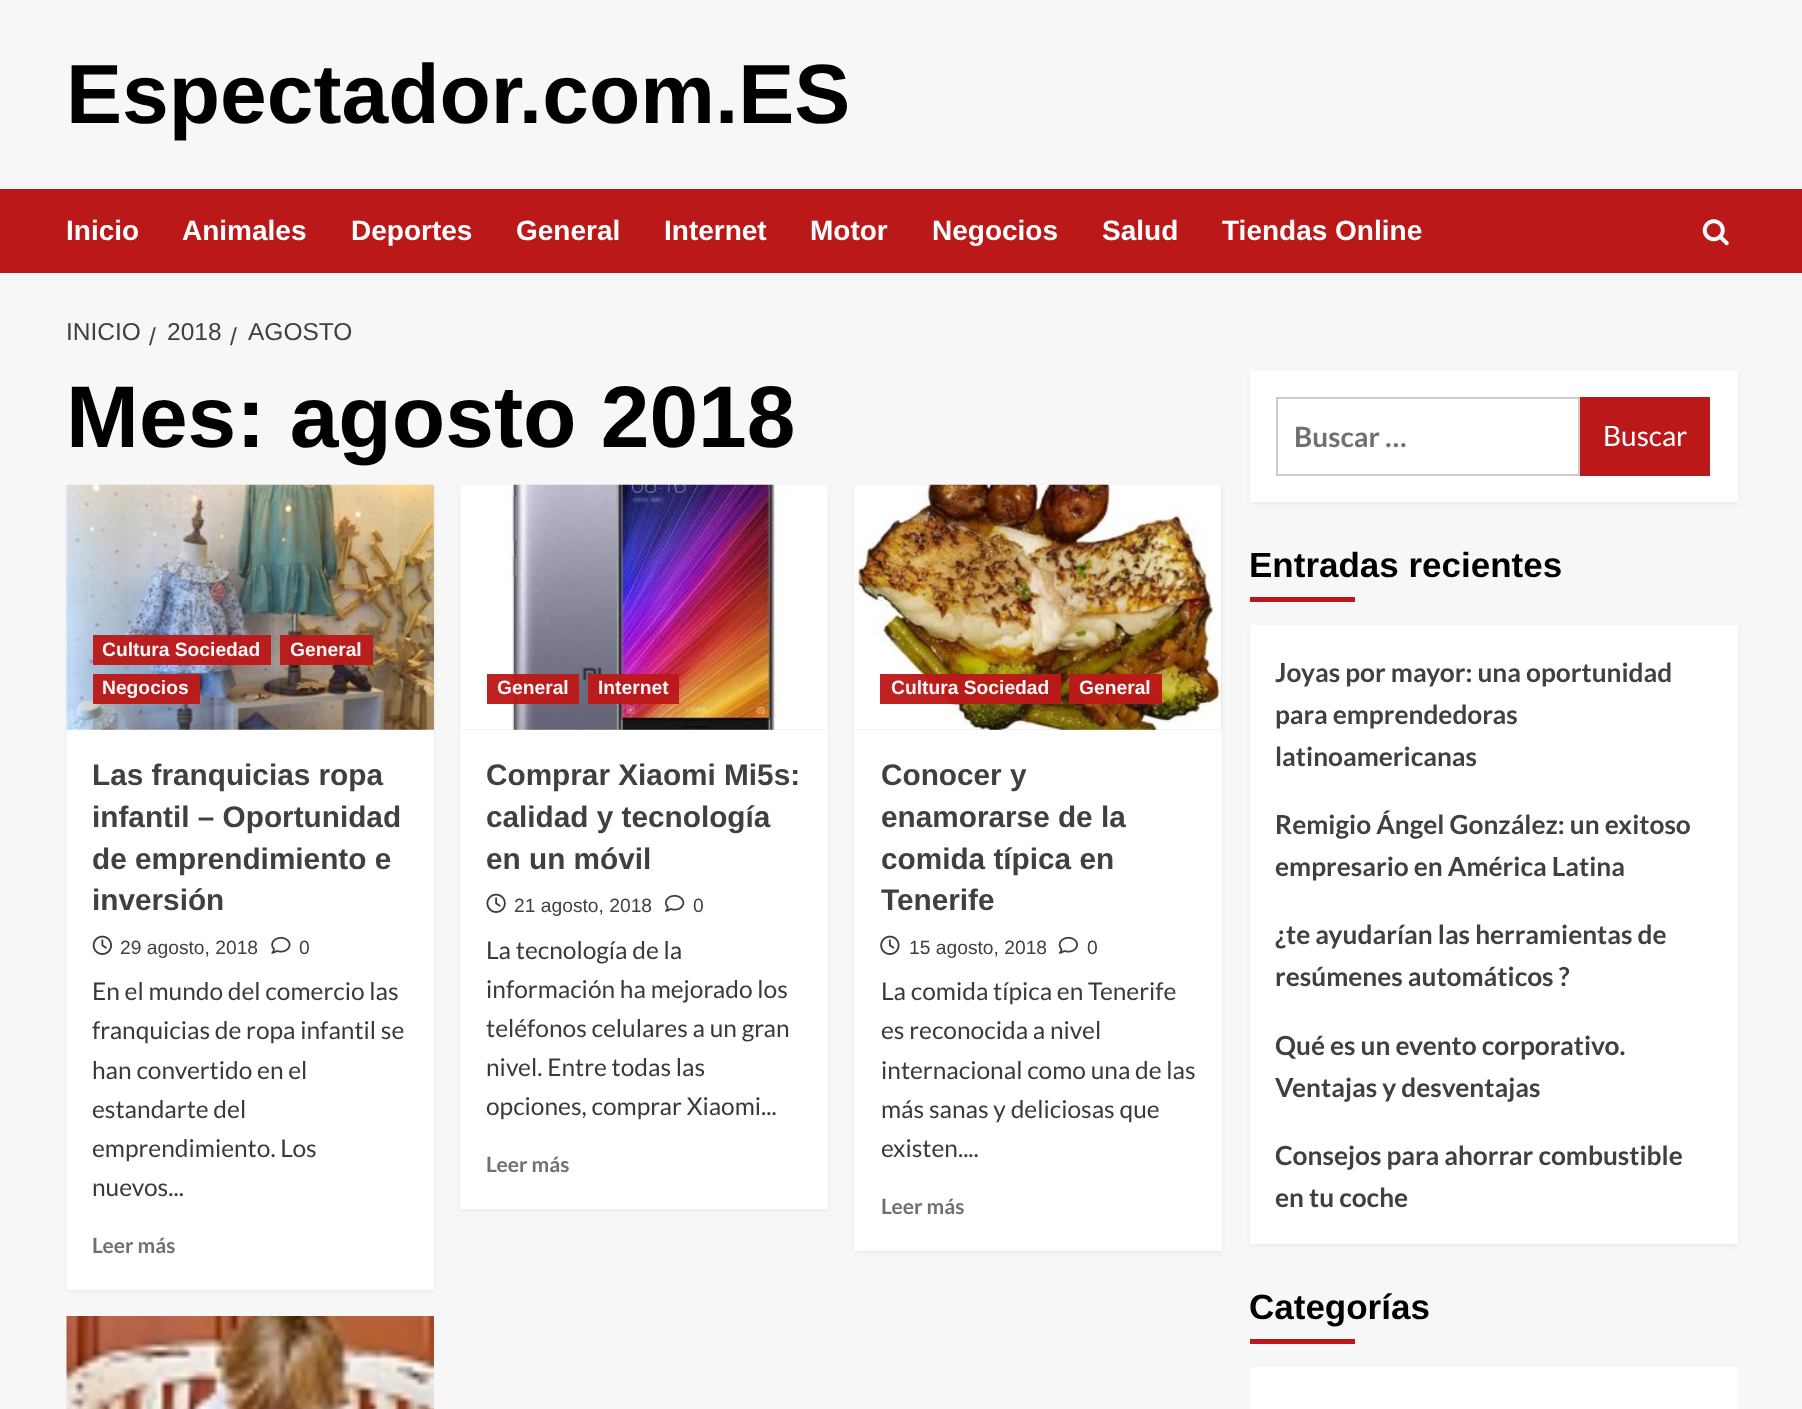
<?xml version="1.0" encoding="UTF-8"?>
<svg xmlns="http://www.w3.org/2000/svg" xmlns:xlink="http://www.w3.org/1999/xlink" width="1802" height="1409">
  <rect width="100%" height="100%" fill="#f7f7f7" />
  <rect y="189" width="1802" height="84" fill="#bb1919" />
  <image x="1702" y="219" width="27" height="27" xlink:href="image1.png" />
  <rect x="67" y="487" width="367" height="805" fill="#000000" fill-opacity="0.05" filter="blur(2px)" />
  <rect x="67" y="729" width="367" height="561" fill="#ffffff" />
  <image x="66" y="484" width="368" height="246" xlink:href="image2.png" />
  <rect x="93" y="635" width="178" height="30" fill="#bb1919" fill-opacity="0.96" />
  <rect x="280" y="635" width="93" height="30" fill="#bb1919" fill-opacity="0.96" />
  <rect x="93" y="674" width="107" height="30" fill="#bb1919" fill-opacity="0.96" />
  <image x="92" y="935" width="20" height="20" xlink:href="image3.png" />
  <image x="271" y="936" width="20" height="18" xlink:href="image4.png" />
  <rect x="460" y="487" width="368" height="724" fill="#000000" fill-opacity="0.05" filter="blur(2px)" />
  <rect x="460" y="730" width="368" height="479" fill="#ffffff" />
  <rect x="460" y="485" width="368" height="245" fill="#d8d8d8" />
  <image x="460" y="484" width="368" height="246" xlink:href="image5.png" />
  <rect x="487" y="674" width="92" height="30" fill="#bb1919" fill-opacity="0.96" />
  <rect x="588" y="674" width="91" height="30" fill="#bb1919" fill-opacity="0.96" />
  <image x="486" y="893" width="20" height="20" xlink:href="image6.png" />
  <image x="665" y="894" width="20" height="18" xlink:href="image7.png" />
  <rect x="854" y="487" width="368" height="766" fill="#000000" fill-opacity="0.05" filter="blur(2px)" />
  <rect x="854" y="730" width="368" height="521" fill="#ffffff" />
  <rect x="854" y="485" width="368" height="245" fill="#d8d8d8" />
  <image x="854" y="484" width="368" height="246" xlink:href="image8.png" />
  <rect x="880" y="674" width="181" height="30" fill="#bb1919" fill-opacity="0.96" />
  <rect x="1069" y="674" width="93" height="30" fill="#bb1919" fill-opacity="0.96" />
  <image x="880" y="935" width="20" height="20" xlink:href="image9.png" />
  <image x="1058" y="936" width="20" height="18" xlink:href="image10.png" />
  <image x="66" y="1316" width="368" height="93" xlink:href="image11.png" />
  <rect x="1250" y="373" width="488" height="131" fill="#000000" fill-opacity="0.05" filter="blur(2px)" />
  <rect x="1250" y="371" width="488" height="131" fill="#ffffff" />
  <rect x="1277" y="398" width="302" height="77" fill="none" stroke="#cccccc" stroke-width="2" />
  <rect x="1580" y="397" width="130" height="79" fill="#bb1919" />
  <rect x="1250" y="597" width="105" height="5" fill="#bb1919" />
  <rect x="1250" y="627" width="488" height="619" fill="#000000" fill-opacity="0.05" filter="blur(2px)" />
  <rect x="1250" y="625" width="488" height="619" fill="#ffffff" />
  <rect x="1250" y="1339" width="105" height="5" fill="#bb1919" />
  <rect x="1250" y="1367" width="488" height="42" fill="#ffffff" />
  <text x="66" y="123" style="font-family: Liberation Sans; font-size: 84px; font-weight: bold; fill: #000000">Espectador.com.ES</text>
  <text x="66" y="240" style="font-family: Liberation Sans; font-size: 28px; font-weight: bold; fill: #ffffff">Inicio</text>
  <text x="182" y="240" style="font-family: Liberation Sans; font-size: 28px; font-weight: bold; fill: #ffffff">Animales</text>
  <text x="351" y="240" style="font-family: Liberation Sans; font-size: 28px; font-weight: bold; fill: #ffffff">Deportes</text>
  <text x="516" y="240" style="font-family: Liberation Sans; font-size: 28px; font-weight: bold; fill: #ffffff">General</text>
  <text x="664" y="240" style="font-family: Liberation Sans; font-size: 28px; font-weight: bold; fill: #ffffff">Internet</text>
  <text x="810" y="240" style="font-family: Liberation Sans; font-size: 28px; font-weight: bold; fill: #ffffff">Motor</text>
  <text x="932" y="240" style="font-family: Liberation Sans; font-size: 28px; font-weight: bold; fill: #ffffff">Negocios</text>
  <text x="1102" y="240" style="font-family: Liberation Sans; font-size: 28px; font-weight: bold; fill: #ffffff">Salud</text>
  <text x="1222" y="240" style="font-family: Liberation Sans; font-size: 28px; font-weight: bold; fill: #ffffff">Tiendas Online</text>
  <text x="66" y="340" style="font-family: Liberation Sans; font-size: 24.5px; fill: #404040">INICIO</text>
  <text x="149" y="345" style="font-family: Liberation Sans; font-size: 24.5px; fill: #404040">/</text>
  <text x="167" y="340" style="font-family: Liberation Sans; font-size: 24.5px; fill: #404040">2018</text>
  <text x="230" y="345" style="font-family: Liberation Sans; font-size: 24.5px; fill: #404040">/</text>
  <text x="248" y="340" style="font-family: Liberation Sans; font-size: 24.5px; fill: #404040">AGOSTO</text>
  <text x="66" y="447" style="font-family: Liberation Sans; font-size: 87.5px; font-weight: bold; fill: #000000">Mes: agosto 2018</text>
  <text x="102" y="656" style="font-family: Liberation Sans; font-size: 19.25px; font-weight: bold; fill: #fcf6f6">Cultura Sociedad</text>
  <text x="290" y="656" style="font-family: Liberation Sans; font-size: 19.25px; font-weight: bold; fill: #fcf6f6">General</text>
  <text x="102" y="694" style="font-family: Liberation Sans; font-size: 19.25px; font-weight: bold; fill: #fcf6f6">Negocios</text>
  <text x="92" y="785" style="font-family: Liberation Sans; font-size: 29.75px; font-weight: bold; fill: #404040">Las franquicias ropa</text>
  <text x="92" y="827" style="font-family: Liberation Sans; font-size: 29.75px; font-weight: bold; fill: #404040">infantil – Oportunidad</text>
  <text x="92" y="869" style="font-family: Liberation Sans; font-size: 29.75px; font-weight: bold; fill: #404040">de emprendimiento e</text>
  <text x="92" y="910" style="font-family: Liberation Sans; font-size: 29.75px; font-weight: bold; fill: #404040">inversión</text>
  <text x="120" y="954" style="font-family: Liberation Sans; font-size: 19.25px; fill: #404040">29 agosto, 2018</text>
  <text x="299" y="954" style="font-family: Liberation Sans; font-size: 19.25px; fill: #404040">0</text>
  <text x="92" y="1000" style="font-family: Lato; font-size: 24.5px; fill: #3a3a3a">En el mundo del comercio las</text>
  <text x="92" y="1039" style="font-family: Lato; font-size: 24.5px; fill: #3a3a3a">franquicias de ropa infantil se</text>
  <text x="92" y="1079" style="font-family: Lato; font-size: 24.5px; fill: #3a3a3a">han convertido en el</text>
  <text x="92" y="1118" style="font-family: Lato; font-size: 24.5px; fill: #3a3a3a">estandarte del</text>
  <text x="92" y="1157" style="font-family: Lato; font-size: 24.5px; fill: #3a3a3a">emprendimiento. Los</text>
  <text x="92" y="1196" style="font-family: Lato; font-size: 24.5px; fill: #3a3a3a">nuevos...</text>
  <text x="92" y="1253" style="font-family: Lato; font-size: 21px; font-weight: bold; fill: #707070">Leer más</text>
  <text x="497" y="694" style="font-family: Liberation Sans; font-size: 19.25px; font-weight: bold; fill: #fcf6f6">General</text>
  <text x="598" y="694" style="font-family: Liberation Sans; font-size: 19.25px; font-weight: bold; fill: #fcf6f6">Internet</text>
  <text x="486" y="785" style="font-family: Liberation Sans; font-size: 29.75px; font-weight: bold; fill: #404040">Comprar Xiaomi Mi5s:</text>
  <text x="486" y="827" style="font-family: Liberation Sans; font-size: 29.75px; font-weight: bold; fill: #404040">calidad y tecnología</text>
  <text x="486" y="869" style="font-family: Liberation Sans; font-size: 29.75px; font-weight: bold; fill: #404040">en un móvil</text>
  <text x="514" y="912" style="font-family: Liberation Sans; font-size: 19.25px; fill: #404040">21 agosto, 2018</text>
  <text x="693" y="912" style="font-family: Liberation Sans; font-size: 19.25px; fill: #404040">0</text>
  <text x="486" y="959" style="font-family: Lato; font-size: 24.5px; fill: #3a3a3a">La tecnología de la</text>
  <text x="486" y="998" style="font-family: Lato; font-size: 24.5px; fill: #3a3a3a">información ha mejorado los</text>
  <text x="486" y="1037" style="font-family: Lato; font-size: 24.5px; fill: #3a3a3a">teléfonos celulares a un gran</text>
  <text x="486" y="1076" style="font-family: Lato; font-size: 24.5px; fill: #3a3a3a">nivel. Entre todas las</text>
  <text x="486" y="1115" style="font-family: Lato; font-size: 24.5px; fill: #3a3a3a">opciones, comprar Xiaomi...</text>
  <text x="486" y="1172" style="font-family: Lato; font-size: 21px; font-weight: bold; fill: #707070">Leer más</text>
  <text x="891" y="694" style="font-family: Liberation Sans; font-size: 19.25px; font-weight: bold; fill: #fcf6f6">Cultura Sociedad</text>
  <text x="1079" y="694" style="font-family: Liberation Sans; font-size: 19.25px; font-weight: bold; fill: #fcf6f6">General</text>
  <text x="881" y="785" style="font-family: Liberation Sans; font-size: 29.75px; font-weight: bold; fill: #404040">Conocer y</text>
  <text x="881" y="827" style="font-family: Liberation Sans; font-size: 29.75px; font-weight: bold; fill: #404040">enamorarse de la</text>
  <text x="881" y="869" style="font-family: Liberation Sans; font-size: 29.75px; font-weight: bold; fill: #404040">comida típica en</text>
  <text x="881" y="910" style="font-family: Liberation Sans; font-size: 29.75px; font-weight: bold; fill: #404040">Tenerife</text>
  <text x="909" y="954" style="font-family: Liberation Sans; font-size: 19.25px; fill: #404040">15 agosto, 2018</text>
  <text x="1087" y="954" style="font-family: Liberation Sans; font-size: 19.25px; fill: #404040">0</text>
  <text x="881" y="1000" style="font-family: Lato; font-size: 24.5px; fill: #3a3a3a">La comida típica en Tenerife</text>
  <text x="881" y="1039" style="font-family: Lato; font-size: 24.5px; fill: #3a3a3a">es reconocida a nivel</text>
  <text x="881" y="1079" style="font-family: Lato; font-size: 24.5px; fill: #3a3a3a">internacional como una de las</text>
  <text x="881" y="1118" style="font-family: Lato; font-size: 24.5px; fill: #3a3a3a">más sanas y deliciosas que</text>
  <text x="881" y="1157" style="font-family: Lato; font-size: 24.5px; fill: #3a3a3a">existen....</text>
  <text x="881" y="1214" style="font-family: Lato; font-size: 21px; font-weight: bold; fill: #707070">Leer más</text>
  <text x="1294" y="447" style="font-family: Lato; font-size: 28px; font-weight: bold; fill: #707070">Buscar …</text>
  <text x="1603" y="446" style="font-family: Lato; font-size: 28px; fill: #ffffff">Buscar</text>
  <text x="1249" y="577" style="font-family: Liberation Sans; font-size: 35px; font-weight: bold; fill: #000000">Entradas recientes</text>
  <text x="1275" y="682" style="font-family: Lato; font-size: 26.25px; font-weight: bold; fill: #404040">Joyas por mayor: una oportunidad</text>
  <text x="1275" y="724" style="font-family: Lato; font-size: 26.25px; font-weight: bold; fill: #404040">para emprendedoras</text>
  <text x="1275" y="766" style="font-family: Lato; font-size: 26.25px; font-weight: bold; fill: #404040">latinoamericanas</text>
  <text x="1275" y="834" style="font-family: Lato; font-size: 26.25px; font-weight: bold; fill: #404040">Remigio Ángel González: un exitoso</text>
  <text x="1275" y="876" style="font-family: Lato; font-size: 26.25px; font-weight: bold; fill: #404040">empresario en América Latina</text>
  <text x="1275" y="944" style="font-family: Lato; font-size: 26.25px; font-weight: bold; fill: #404040">¿te ayudarían las herramientas de</text>
  <text x="1275" y="986" style="font-family: Lato; font-size: 26.25px; font-weight: bold; fill: #404040">resúmenes automáticos ?</text>
  <text x="1275" y="1055" style="font-family: Lato; font-size: 26.25px; font-weight: bold; fill: #404040">Qué es un evento corporativo.</text>
  <text x="1275" y="1097" style="font-family: Lato; font-size: 26.25px; font-weight: bold; fill: #404040">Ventajas y desventajas</text>
  <text x="1275" y="1165" style="font-family: Lato; font-size: 26.25px; font-weight: bold; fill: #404040">Consejos para ahorrar combustible</text>
  <text x="1275" y="1207" style="font-family: Lato; font-size: 26.25px; font-weight: bold; fill: #404040">en tu coche</text>
  <text x="1249" y="1319" style="font-family: Liberation Sans; font-size: 35px; font-weight: bold; fill: #000000">Categorías</text>
</svg>
